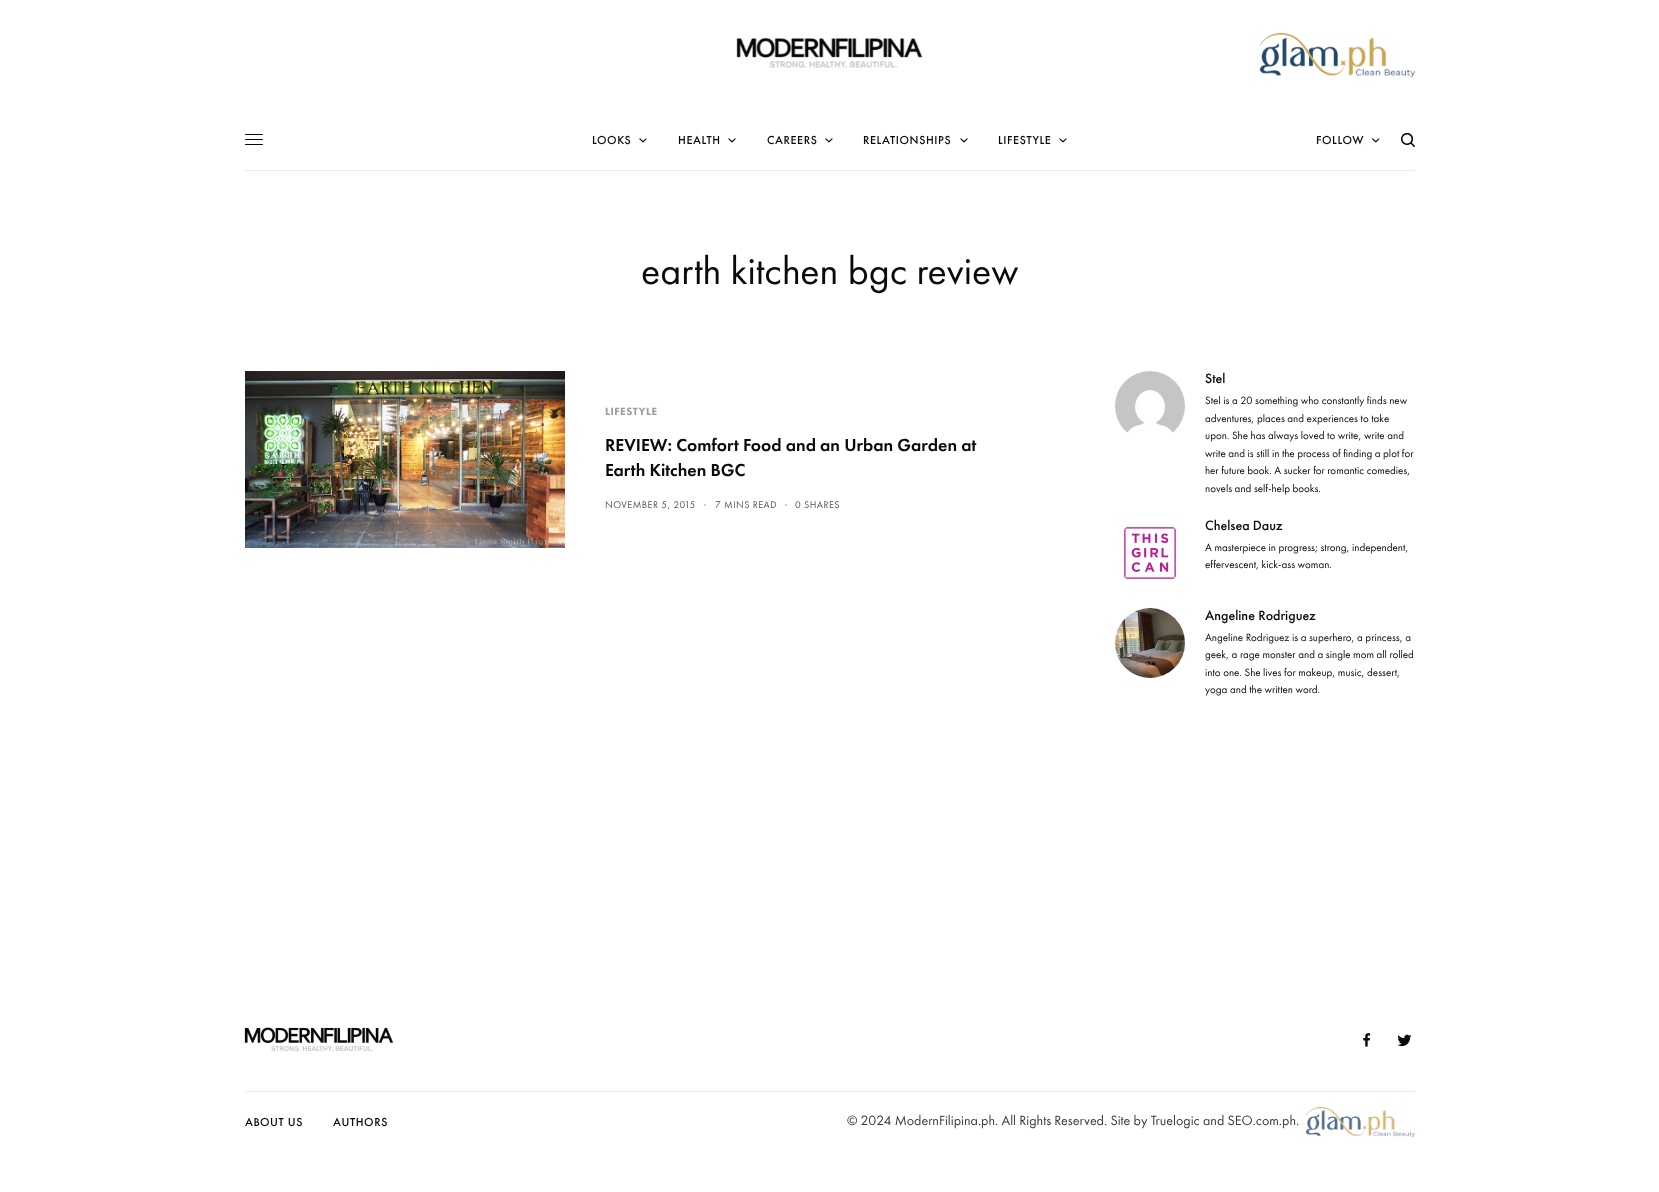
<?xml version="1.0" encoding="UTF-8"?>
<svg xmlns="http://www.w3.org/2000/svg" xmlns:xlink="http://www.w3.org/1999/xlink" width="1659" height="1192">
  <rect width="100%" height="100%" fill="#ffffff" />
  <image x="736" y="38" width="187" height="30" xlink:href="image1.png" />
  <image x="1259" y="32" width="156" height="45" xlink:href="image2.png" />
  <rect x="245" y="170" width="1170" height="1" fill="#e9e9e9" />
  <rect x="245" y="134" width="18" height="1" rx="0.5" fill="#0a0a0a" />
  <rect x="245" y="139" width="18" height="1" rx="0.5" fill="#0a0a0a" />
  <rect x="245" y="144" width="18" height="1" rx="0.5" fill="#0a0a0a" />
  <image x="639" y="138" width="8" height="5" xlink:href="image3.png" />
  <image x="728" y="138" width="8" height="5" xlink:href="image3.png" />
  <image x="825" y="138" width="8" height="5" xlink:href="image3.png" />
  <image x="960" y="138" width="8" height="5" xlink:href="image3.png" />
  <image x="1059" y="138" width="8" height="5" xlink:href="image3.png" />
  <image x="1372" y="138" width="8" height="5" xlink:href="image4.png" />
  <image x="1401" y="133" width="14" height="14" xlink:href="image5.png" />
  <image x="245" y="371" width="320" height="177" xlink:href="image6.png" />
  <image x="1115" y="371" width="70" height="62" xlink:href="image7.png" />
  <image x="1124" y="527" width="52" height="52" xlink:href="image8.png" />
  <image x="1115" y="608" width="70" height="70" xlink:href="image9.png" />
  <image x="244" y="1027" width="149" height="25" xlink:href="image10.png" />
  <image x="1363" y="1033" width="8" height="14" xlink:href="image11.png" />
  <image x="1397" y="1034" width="15" height="13" xlink:href="image12.png" />
  <rect x="245" y="1091" width="1170" height="1" fill="#e9e9e9" />
  <image x="1306" y="1107" width="109" height="30" xlink:href="image13.png" />
  <text x="592" y="144" style="font-family: Futura PT; font-size: 12px; font-weight: 500; letter-spacing: 0.6px; fill: #0a0a0a">LOOKS</text>
  <text x="678" y="144" style="font-family: Futura PT; font-size: 12px; font-weight: 500; letter-spacing: 0.6px; fill: #0a0a0a">HEALTH</text>
  <text x="767" y="144" style="font-family: Futura PT; font-size: 12px; font-weight: 500; letter-spacing: 0.6px; fill: #0a0a0a">CAREERS</text>
  <text x="863" y="144" style="font-family: Futura PT; font-size: 12px; font-weight: 500; letter-spacing: 0.6px; fill: #0a0a0a">RELATIONSHIPS</text>
  <text x="998" y="144" style="font-family: Futura PT; font-size: 12px; font-weight: 500; letter-spacing: 0.6px; fill: #0a0a0a">LIFESTYLE</text>
  <text x="1316" y="144" style="font-family: Futura PT; font-size: 12px; font-weight: 500; letter-spacing: 0.6px; fill: #0a0a0a">FOLLOW</text>
  <text x="641" y="284" style="font-family: Futura PT; font-size: 40px; fill: #0a0a0a">earth kitchen bgc review</text>
  <text x="605" y="415" style="font-family: Futura PT; font-size: 11px; font-weight: 900; letter-spacing: 0.5px; fill: #9d9d9d">LIFESTYLE</text>
  <text x="605" y="451" style="font-family: 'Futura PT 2'; font-size: 18px; font-weight: 500; fill: #0a0a0a">REVIEW: Comfort Food and an Urban Garden at</text>
  <text x="605" y="476" style="font-family: 'Futura PT 2'; font-size: 18px; font-weight: 500; fill: #0a0a0a">Earth Kitchen BGC</text>
  <text x="605" y="508" style="font-family: Futura PT; font-size: 10px; letter-spacing: 0.5px; fill: #545454">NOVEMBER 5, 2015</text>
  <text x="704" y="508" style="font-family: 'Futura PT 2'; font-size: 10px; font-weight: 500; letter-spacing: 0.5px; fill: #b5b5b5">·</text>
  <text x="715" y="508" style="font-family: Futura PT; font-size: 10px; letter-spacing: 0.5px; fill: #545454">7 MINS READ</text>
  <text x="785" y="508" style="font-family: 'Futura PT 2'; font-size: 10px; font-weight: 500; letter-spacing: 0.5px; fill: #b5b5b5">·</text>
  <text x="795" y="508" style="font-family: Futura PT; font-size: 10px; letter-spacing: 0.5px; fill: #545454">0 SHARES</text>
  <text x="1205" y="383" style="font-family: Futura PT; font-size: 14px; font-weight: 500; fill: #0a0a0a">Stel</text>
  <text x="1205" y="404" style="font-family: Futura PT; font-size: 11px; fill: #0a0a0a">Stel is a 20 something who constantly finds new</text>
  <text x="1205" y="422" style="font-family: Futura PT; font-size: 11px; fill: #0a0a0a">adventures, places and experiences to take</text>
  <text x="1205" y="439" style="font-family: Futura PT; font-size: 11px; fill: #0a0a0a">upon. She has always loved to write, write and</text>
  <text x="1205" y="457" style="font-family: Futura PT; font-size: 11px; fill: #0a0a0a">write and is still in the process of finding a plot for</text>
  <text x="1205" y="474" style="font-family: Futura PT; font-size: 11px; fill: #0a0a0a">her future book. A sucker for romantic comedies,</text>
  <text x="1205" y="492" style="font-family: Futura PT; font-size: 11px; fill: #0a0a0a">novels and self-help books.</text>
  <text x="1205" y="530" style="font-family: Futura PT; font-size: 14px; font-weight: 500; fill: #0a0a0a">Chelsea Dauz</text>
  <text x="1205" y="551" style="font-family: Futura PT; font-size: 11px; fill: #0a0a0a">A masterpiece in progress; strong, independent,</text>
  <text x="1205" y="568" style="font-family: Futura PT; font-size: 11px; fill: #0a0a0a">effervescent, kick-ass woman.</text>
  <text x="1205" y="620" style="font-family: Futura PT; font-size: 14px; font-weight: 500; fill: #0a0a0a">Angeline Rodriguez</text>
  <text x="1205" y="641" style="font-family: Futura PT; font-size: 11px; fill: #0a0a0a">Angeline Rodriguez is a superhero, a princess, a</text>
  <text x="1205" y="658" style="font-family: Futura PT; font-size: 11px; fill: #0a0a0a">geek, a rage monster and a single mom all rolled</text>
  <text x="1205" y="676" style="font-family: Futura PT; font-size: 11px; fill: #0a0a0a">into one. She lives for makeup, music, dessert,</text>
  <text x="1205" y="693" style="font-family: Futura PT; font-size: 11px; fill: #0a0a0a">yoga and the written word.</text>
  <text x="245" y="1126" style="font-family: Futura PT; font-size: 12px; font-weight: 500; letter-spacing: 0.6px; fill: #0a0a0a">ABOUT US</text>
  <text x="333" y="1126" style="font-family: Futura PT; font-size: 12px; font-weight: 500; letter-spacing: 0.6px; fill: #0a0a0a">AUTHORS</text>
  <text x="847" y="1125" style="font-family: Futura PT; font-size: 14px; fill: #3b3b3b">© 2024 ModernFilipina.ph. All Rights Reserved. Site by Truelogic and SEO.com.ph.</text>
</svg>
